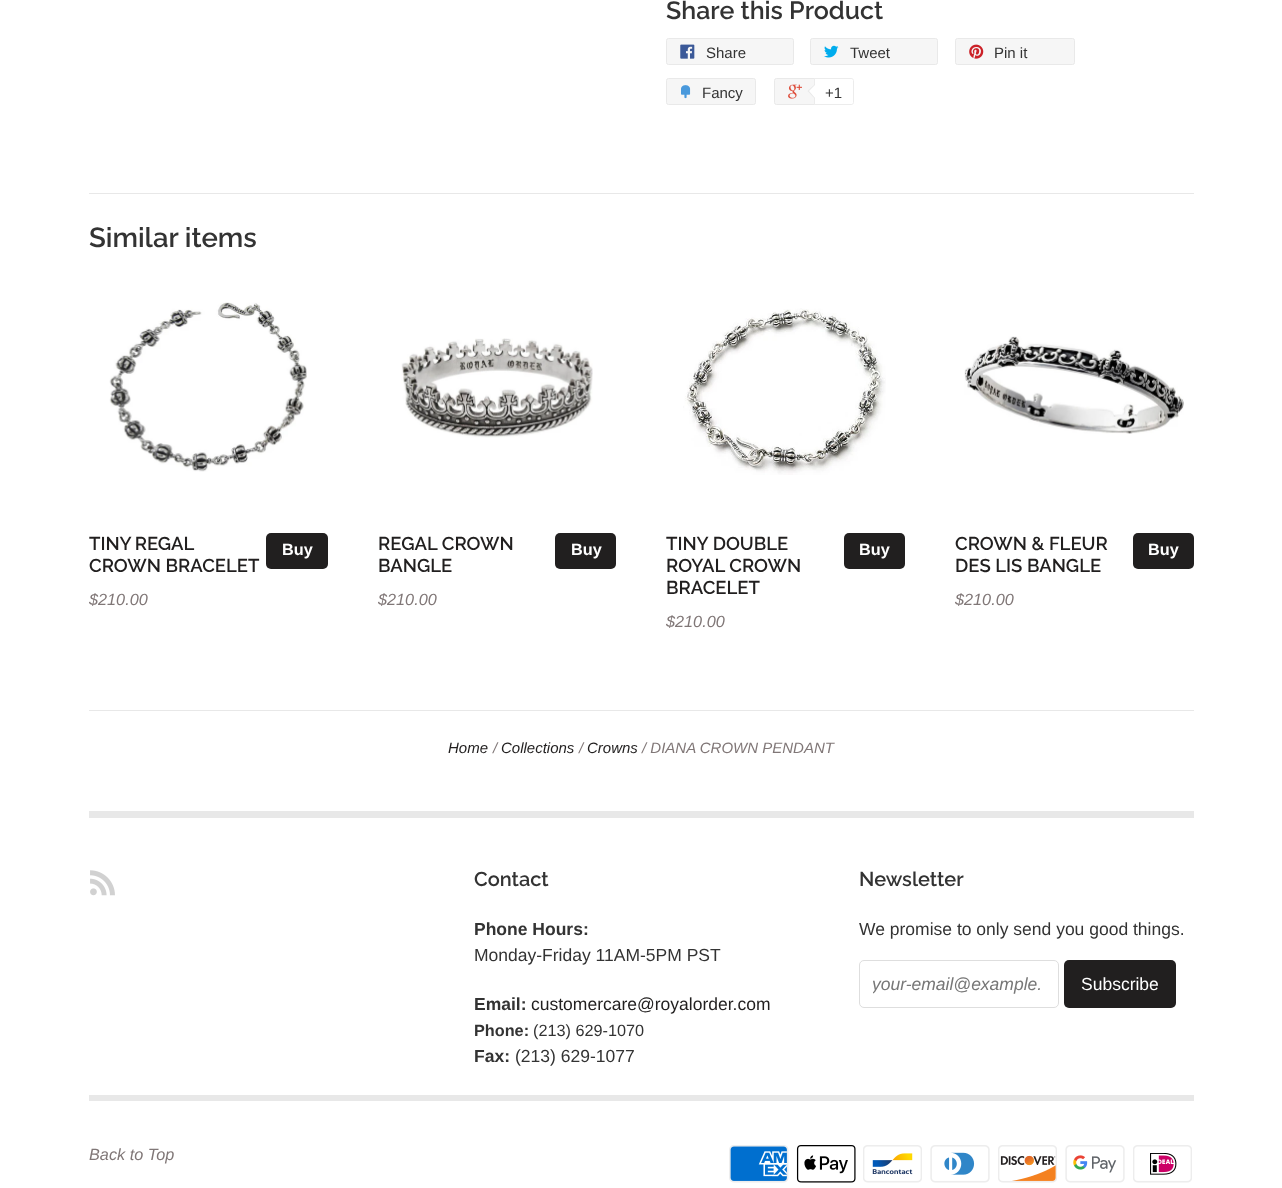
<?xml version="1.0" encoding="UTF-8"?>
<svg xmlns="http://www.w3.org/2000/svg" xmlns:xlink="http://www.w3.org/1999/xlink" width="1282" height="1188">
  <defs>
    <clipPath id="clip1"><rect x="873" y="974" width="172" height="20" /></clipPath>
  </defs>
  <rect width="100%" height="100%" fill="#ffffff" />
  <rect x="666.5" y="38.5" width="127" height="26" rx="2" fill="#f6f6f6" stroke="#e9e9e9" />
  <image x="680" y="44" width="15" height="15" xlink:href="image1.png" />
  <rect x="810.5" y="38.5" width="127" height="26" rx="2" fill="#f6f6f6" stroke="#e9e9e9" />
  <image x="824" y="45" width="15" height="13" xlink:href="image2.png" />
  <rect x="955.5" y="38.5" width="119" height="26" rx="2" fill="#f6f6f6" stroke="#e9e9e9" />
  <image x="969" y="44" width="15" height="15" xlink:href="image3.png" />
  <rect x="666.5" y="78.5" width="89" height="26" rx="2" fill="#f6f6f6" stroke="#e9e9e9" />
  <image x="681" y="85" width="10" height="14" xlink:href="image4.png" />
  <rect x="774.5" y="78.5" width="78" height="26" rx="2" fill="#f6f6f6" stroke="#e9e9e9" />
  <image x="788" y="84" width="14" height="15" xlink:href="image5.png" />
  <path d="M 814.5 78.5 h 37 c 1 0 2 1 2 2 v 22 c 0 1 -1 2 -2 2 h -37 z" fill="#ffffff" stroke="#ececec" />
  <path d="M 815 84 v 15 l -7.5 -8 z" fill="#e9e9e9" />
  <path d="M 816 84 v 15 l -7 -8 z" fill="#ffffff" />
  <rect x="89" y="193" width="1105" height="1" fill="#e8e8e8" />
  <image x="109" y="302" width="198" height="170" xlink:href="image6.png" />
  <rect x="266" y="533" width="62" height="36" rx="5" fill="#211f1f" />
  <image x="401" y="338" width="192" height="100" xlink:href="image7.png" />
  <rect x="555" y="533" width="61" height="36" rx="5" fill="#211f1f" />
  <image x="683" y="308" width="203" height="167" xlink:href="image8.png" />
  <rect x="844" y="533" width="61" height="36" rx="5" fill="#211f1f" />
  <image x="964" y="336" width="220" height="98" xlink:href="image9.png" />
  <rect x="1133" y="533" width="61" height="36" rx="5" fill="#211f1f" />
  <rect x="89" y="710" width="1105" height="1" fill="#e8e8e8" />
  <rect x="89" y="811" width="1105" height="7" fill="#e8e8e8" />
  <image x="90" y="870" width="25" height="26" xlink:href="image10.png" />
  <rect x="859.5" y="960.5" width="199" height="47" rx="4.5" fill="none" stroke="#dedede" />
  <rect x="1064" y="960" width="112" height="48" rx="5" fill="#211f1f" />
  <rect x="89" y="1095" width="1105" height="6" fill="#e8e8e8" />
  <image x="729" y="1145" width="60" height="38" xlink:href="image11.png" />
  <image x="796" y="1145" width="60" height="38" xlink:href="image12.png" />
  <image x="863" y="1145" width="59" height="38" xlink:href="image13.png" />
  <image x="930" y="1145" width="60" height="38" xlink:href="image14.png" />
  <image x="998" y="1145" width="59" height="38" xlink:href="image15.png" />
  <image x="1065" y="1145" width="60" height="38" xlink:href="image16.png" />
  <image x="1133" y="1145" width="59" height="38" xlink:href="image17.png" />
  <text x="666" y="19" style="font-family: Raleway; font-size: 25px; font-weight: 100; fill: #333333">Share this Product</text>
  <text x="706" y="58" style="font-family: Liberation Sans; font-size: 15px; fill: #333333">Share</text>
  <text x="850" y="58" style="font-family: Liberation Sans; font-size: 15px; fill: #333333">Tweet</text>
  <text x="994" y="58" style="font-family: Liberation Sans; font-size: 15px; fill: #333333">Pin it</text>
  <text x="702" y="98" style="font-family: Liberation Sans; font-size: 15px; fill: #333333">Fancy</text>
  <text x="825" y="98" style="font-family: Liberation Sans; font-size: 15px; fill: #333333">+1</text>
  <text x="89" y="247" style="font-family: Raleway; font-size: 27.5px; font-weight: 100; fill: #333333">Similar items</text>
  <text x="89" y="550" word-spacing="-1" style="font-family: Raleway; font-size: 18.5px; font-weight: 100; fill: #211f1f">TINY REGAL</text>
  <text x="89" y="572" style="font-family: Raleway; font-size: 18.5px; font-weight: 100; fill: #211f1f">CROWN BRACELET</text>
  <text x="89" y="605" style="font-family: Liberation Sans; font-size: 16.25px; font-style: italic; fill: #807777">$210.00</text>
  <text x="282" y="555" style="font-family: Liberation Sans; font-size: 16.25px; font-weight: bold; fill: #ffffff">Buy</text>
  <text x="378" y="550" style="font-family: Raleway; font-size: 18.5px; font-weight: 100; fill: #211f1f">REGAL CROWN</text>
  <text x="378" y="572" style="font-family: Raleway; font-size: 18.5px; font-weight: 100; fill: #211f1f">BANGLE</text>
  <text x="378" y="605" style="font-family: Liberation Sans; font-size: 16.25px; font-style: italic; fill: #807777">$210.00</text>
  <text x="571" y="555" style="font-family: Liberation Sans; font-size: 16.25px; font-weight: bold; fill: #ffffff">Buy</text>
  <text x="666" y="550" style="font-family: Raleway; font-size: 18.5px; font-weight: 100; fill: #211f1f">TINY DOUBLE</text>
  <text x="666" y="572" style="font-family: Raleway; font-size: 18.5px; font-weight: 100; fill: #211f1f">ROYAL CROWN</text>
  <text x="666" y="594" style="font-family: Raleway; font-size: 18.5px; font-weight: 100; fill: #211f1f">BRACELET</text>
  <text x="666" y="627" style="font-family: Liberation Sans; font-size: 16.25px; font-style: italic; fill: #807777">$210.00</text>
  <text x="859" y="555" style="font-family: Liberation Sans; font-size: 16.25px; font-weight: bold; fill: #ffffff">Buy</text>
  <text x="955" y="550" style="font-family: Raleway; font-size: 18.5px; font-weight: 100; fill: #211f1f">CROWN &amp; FLEUR</text>
  <text x="955" y="572" style="font-family: Raleway; font-size: 18.5px; font-weight: 100; fill: #211f1f">DES LIS BANGLE</text>
  <text x="955" y="605" style="font-family: Liberation Sans; font-size: 16.25px; font-style: italic; fill: #807777">$210.00</text>
  <text x="1148" y="555" style="font-family: Liberation Sans; font-size: 16.25px; font-weight: bold; fill: #ffffff">Buy</text>
  <text x="448" y="753" style="font-family: Liberation Sans; font-size: 15px; font-style: italic; fill: #211f1f">Home</text>
  <text x="493" y="753" style="font-family: Liberation Sans; font-size: 15px; font-style: italic; fill: #807777">/</text>
  <text x="501" y="753" style="font-family: Liberation Sans; font-size: 15px; font-style: italic; fill: #211f1f">Collections</text>
  <text x="579" y="753" style="font-family: Liberation Sans; font-size: 15px; font-style: italic; fill: #807777">/</text>
  <text x="587" y="753" style="font-family: Liberation Sans; font-size: 15px; font-style: italic; fill: #211f1f">Crowns</text>
  <text x="642" y="753" style="font-family: Liberation Sans; font-size: 15px; font-style: italic; fill: #807777">/ DIANA CROWN PENDANT</text>
  <text x="474" y="886" style="font-family: Raleway; font-size: 20px; font-weight: 100; fill: #333333">Contact</text>
  <text x="474" y="935" style="font-family: Liberation Sans; font-size: 17.5px; font-weight: bold; fill: #333333">Phone Hours:</text>
  <text x="474" y="961" style="font-family: Liberation Sans; font-size: 17.5px; fill: #333333">Monday-Friday 11AM-5PM PST</text>
  <text x="474" y="1010" style="font-family: Liberation Sans; font-size: 17.5px; font-weight: bold; fill: #333333">Email:</text>
  <text x="531" y="1010" style="font-family: Liberation Sans; font-size: 17.5px; fill: #211f1f">customercare@royalorder.com</text>
  <text x="474" y="1036" style="font-family: Liberation Sans; font-size: 16.25px; font-weight: bold; fill: #333333">Phone:</text>
  <text x="533" y="1036" style="font-family: Liberation Sans; font-size: 16.25px; fill: #333333">(213) 629-1070</text>
  <text x="474" y="1062" style="font-family: Liberation Sans; font-size: 17.5px; font-weight: bold; fill: #333333">Fax:</text>
  <text x="515" y="1062" style="font-family: Liberation Sans; font-size: 17.5px; fill: #333333">(213) 629-1077</text>
  <text x="859" y="886" style="font-family: Raleway; font-size: 20px; font-weight: 100; fill: #333333">Newsletter</text>
  <text x="859" y="935" style="font-family: Liberation Sans; font-size: 17.5px; fill: #333333">We promise to only send you good things.</text>
  <g clip-path="url(#clip1)">
    <text x="872" y="990" style="font-family: Liberation Sans; font-size: 17.5px; font-style: italic; fill: #777777">your-email@example.</text>
  </g>
  <text x="1081" y="990" style="font-family: Liberation Sans; font-size: 17.5px; fill: #ffffff">Subscribe</text>
  <text x="89" y="1160" style="font-family: Liberation Sans; font-size: 16.25px; font-style: italic; fill: #807777">Back to Top</text>
</svg>
